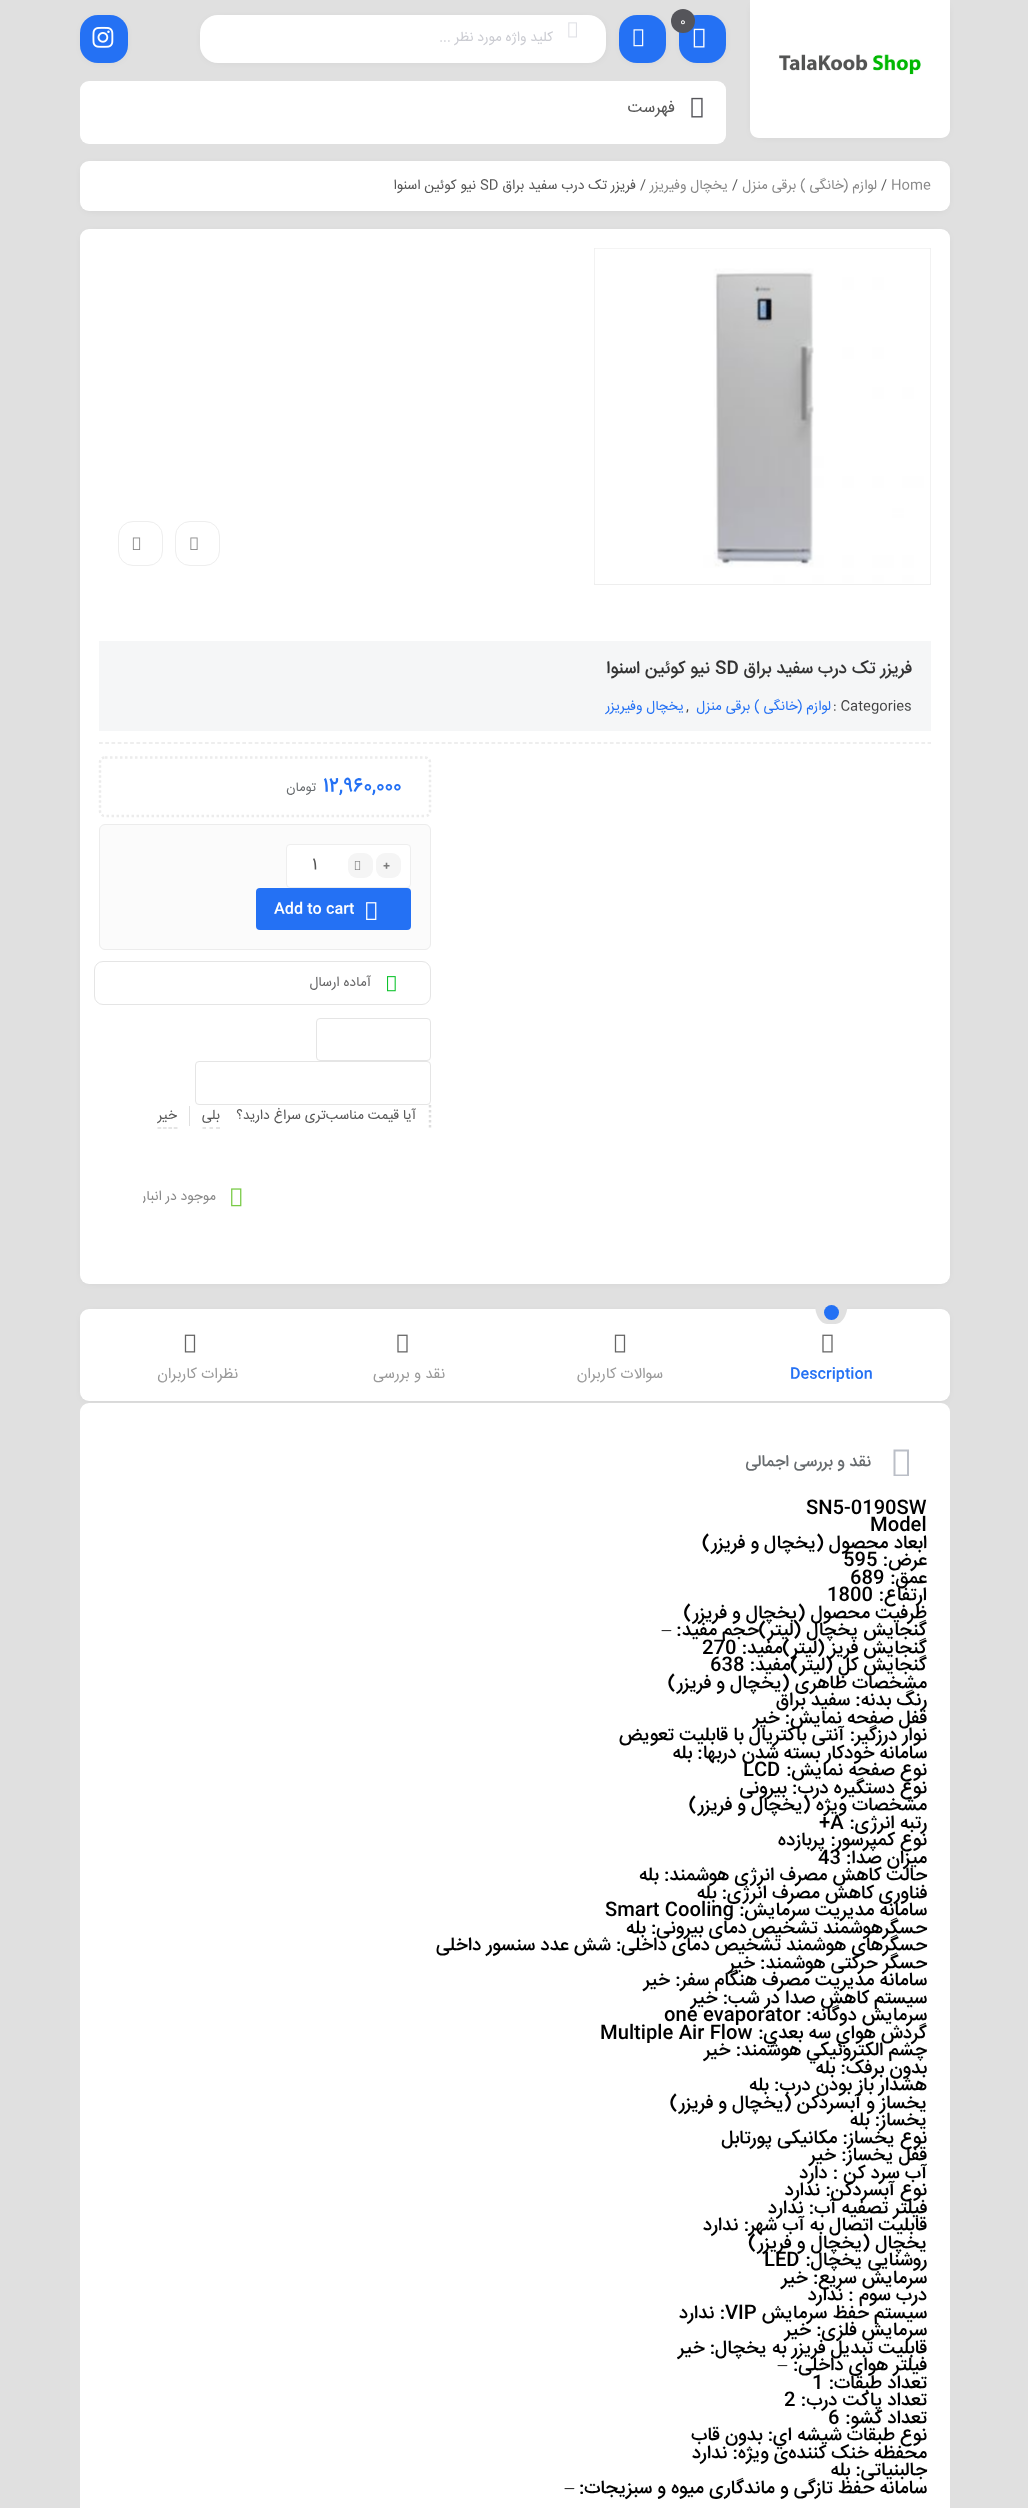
<?xml version="1.0" encoding="UTF-8"?>
<svg xmlns="http://www.w3.org/2000/svg" xmlns:xlink="http://www.w3.org/1999/xlink" width="1028" height="2508">
  <defs>
    <clipPath id="clip1"><rect x="143" y="1173" width="73" height="50" /></clipPath>
  </defs>
  <rect width="100%" height="100%" fill="#e0e0e0" />
  <rect x="754" y="5" width="192" height="130" rx="5" fill="#000000" fill-opacity="0.1" filter="blur(4.5px)" />
  <path d="M 750 0 h 200 v 129 c 0 5 -4 9 -9 9 h -182 c -5 0 -9 -4 -9 -9 z" fill="#ffffff" />
  <image x="779" y="54" width="142" height="21" xlink:href="image1.png" />
  <rect x="683" y="20" width="40" height="40" rx="14" fill="#000000" fill-opacity="0.1" filter="blur(4.5px)" />
  <rect x="679" y="15" width="47" height="48" rx="18" fill="#2471f4" />
  <image x="693" y="28" width="12" height="20" xlink:href="image2.png" />
  <rect x="623" y="20" width="40" height="40" rx="14" fill="#000000" fill-opacity="0.1" filter="blur(4.5px)" />
  <circle cx="683" cy="21" r="12" fill="#55555a" />
  <rect x="619" y="15" width="47" height="48" rx="18" fill="#2471f4" />
  <image x="633" y="29" width="11" height="18" xlink:href="image3.png" />
  <rect x="84" y="20" width="40" height="40" rx="14" fill="#000000" fill-opacity="0.1" filter="blur(4.5px)" />
  <rect x="80" y="15" width="48" height="48" rx="18" fill="#2471f4" />
  <image x="92" y="26" width="22" height="22" xlink:href="image4.png" />
  <rect x="204" y="20" width="399" height="40" rx="14" fill="#000000" fill-opacity="0.1" filter="blur(4.5px)" />
  <rect x="200" y="15" width="406" height="48" rx="18" fill="#ffffff" />
  <image x="568" y="22" width="9" height="16" xlink:href="image5.png" />
  <rect x="80" y="81" width="646" height="63" rx="9" fill="#ffffff" />
  <image x="691" y="97" width="12" height="21" xlink:href="image6.png" />
  <rect x="84" y="166" width="862" height="43" rx="5" fill="#000000" fill-opacity="0.1" filter="blur(4.5px)" />
  <rect x="80" y="161" width="870" height="50" rx="9" fill="#ffffff" />
  <rect x="84" y="234" width="862" height="1047" rx="5" fill="#000000" fill-opacity="0.1" filter="blur(4.5px)" />
  <rect x="80" y="229" width="870" height="1055" rx="9" fill="#ffffff" />
  <rect x="594.5" y="248.5" width="336" height="336" fill="none" stroke="#eeeeee" />
  <image x="594" y="248" width="337" height="335" xlink:href="image7.png" />
  <rect x="175.5" y="521.5" width="44" height="44" rx="14.5" fill="none" stroke="#eeeeee" />
  <image x="190" y="537" width="8" height="13" xlink:href="image8.png" />
  <rect x="118.5" y="521.5" width="44" height="44" rx="14.5" fill="none" stroke="#eeeeee" />
  <image x="132" y="537" width="9" height="13" xlink:href="image9.png" />
  <rect x="99" y="641" width="832" height="90" fill="#f5f6f7" />
  <path d="M 99 743 h 832" fill="none" stroke="#dddddd" stroke-width="1.2" stroke-dasharray="3.75 2.48" />
  <path d="M 105 757.5 h 320 c 3 0 5 2 5 5 v 48.5 c 0 3 -2 5 -5 5 h -320 c -3 0 -5 -2 -5 -5 v -48.5 c 0 -3 2 -5 5 -5 z" fill="none" stroke="#ececec" stroke-width="2.5" stroke-dasharray="2.5 2.5" />
  <rect x="99.5" y="824.5" width="331" height="125" rx="5.5" fill="#fbfbfb" stroke="#ececec" />
  <rect x="286.5" y="844.5" width="124" height="43" rx="3.5" fill="#ffffff" stroke="#eeeeee" />
  <rect x="376" y="853" width="25" height="25" rx="9" fill="#f5f5f5" />
  <rect x="348" y="853" width="25" height="25" rx="9" fill="#f5f5f5" />
  <image x="354" y="861" width="7" height="9" xlink:href="image10.png" />
  <rect x="256" y="888" width="155" height="42" rx="4" fill="#2471f4" />
  <image x="366" y="902" width="11" height="18" xlink:href="image11.png" />
  <rect x="94.5" y="961.5" width="336" height="43" rx="8.5" fill="none" stroke="#e5e5e5" />
  <image x="387" y="976" width="9" height="16" xlink:href="image12.png" />
  <rect x="316.5" y="1018.5" width="114" height="42" rx="3.5" fill="none" stroke="#e5e5e5" />
  <rect x="195.5" y="1061.5" width="235" height="43" rx="3.5" fill="none" stroke="#e5e5e5" />
  <path d="M 430 1105 v 22.5" fill="none" stroke="#dddddd" stroke-width="2.5" stroke-dasharray="2.5 2.5" />
  <path d="M 202.5 1128 h 3.5 m 3.5 0 h 3.5 m 3 0 h 4" fill="none" stroke="#cccccc" stroke-width="1.2" />
  <rect x="189" y="1106" width="1" height="20" fill="#e0e0e0" />
  <path d="M 157.5 1128 h 20" fill="none" stroke="#cccccc" stroke-width="1.2" stroke-dasharray="3.75 1.66" />
  <image x="231" y="1188" width="11" height="19" xlink:href="image13.png" />
  <rect x="84" y="1314" width="862" height="85" rx="5" fill="#000000" fill-opacity="0.1" filter="blur(4.5px)" />
  <rect x="80" y="1309" width="870" height="92" rx="9" fill="#ffffff" />
  <path d="M 822 1290 h 18.5 c 4 0 7 6.5 7 14.5 c 0 10.5 -5.5 19.5 -12 19.5 h -8.5 c -6.5 0 -12 -9 -12 -19.5 c 0 -8 3 -14.5 7 -14.5 z" fill="#e0e0e0" />
  <circle cx="831.5" cy="1312.5" r="7.5" fill="#2471f4" />
  <image x="822" y="1334" width="11" height="19" xlink:href="image14.png" />
  <image x="614" y="1334" width="12" height="19" xlink:href="image15.png" />
  <image x="397" y="1334" width="11" height="19" xlink:href="image14.png" />
  <image x="184" y="1334" width="12" height="19" xlink:href="image15.png" />
  <rect x="80" y="1403" width="870" height="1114" rx="9" fill="#ffffff" />
  <path d="M 893.5 1476 v -26.5 h 15.5 v 26.5 z m 2 -1.5 h 11.5 v -23 h -11.5 z" fill="#bbbfc7" />
  <text x="680" y="25" style="font-family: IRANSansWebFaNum; font-size: 12px; fill: #ffffff">0</text>
  <text x="553" y="41" style="font-family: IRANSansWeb; font-size: 13.75px; direction: rtl; fill: #cbccd2">کلید واژه مورد نظر ...</text>
  <text x="675" y="112" style="font-family: IRANSansWeb; font-size: 16.25px; direction: rtl; fill: #555555">فهرست</text>
  <text x="891" y="189" style="font-family: IRANSansWeb; font-size: 13.75px; fill: #888888">Home</text>
  <text x="881" y="189" style="font-family: IRANSansWeb; font-size: 13.75px; fill: #555555">/</text>
  <text x="877" y="189" style="font-family: IRANSansWeb; font-size: 13.75px; direction: rtl; fill: #888888">لوازم (خانگی ) برقی منزل</text>
  <text x="732" y="189" style="font-family: IRANSansWeb; font-size: 13.75px; fill: #555555">/</text>
  <text x="728" y="189" style="font-family: IRANSansWeb; font-size: 13.75px; direction: rtl; fill: #888888">یخچال وفیریزر</text>
  <text x="646" y="189" style="font-family: IRANSansWeb; font-size: 13.75px; direction: rtl; fill: #555555">/ فریزر تک درب سفید براق</text>
  <text x="480" y="189" style="font-family: IRANSansWeb; font-size: 13.75px; fill: #555555">SD</text>
  <text x="476" y="189" style="font-family: IRANSansWeb; font-size: 13.75px; direction: rtl; fill: #555555">نیو کوئین اسنوا</text>
  <text x="912" y="673" style="font-family: IRANSansWeb; font-size: 17.5px; font-weight: 500; direction: rtl; fill: #333333">فریزر تک درب سفید براق</text>
  <text x="715" y="673" style="font-family: IRANSansWeb; font-size: 17.5px; font-weight: 500; fill: #333333">SD</text>
  <text x="710" y="673" style="font-family: IRANSansWeb; font-size: 17.5px; font-weight: 500; direction: rtl; fill: #333333">نیو کوئین اسنوا</text>
  <text x="833" y="710" style="font-family: IRANSansWeb; font-size: 13.75px; fill: #434343">: Categories</text>
  <text x="831" y="710" style="font-family: IRANSansWeb; font-size: 13.75px; direction: rtl; fill: #2471f4">لوازم (خانگی ) برقی منزل</text>
  <text x="686" y="710" style="font-family: IRANSansWeb; font-size: 13.75px; fill: #434343">,</text>
  <text x="684" y="710" style="font-family: IRANSansWeb; font-size: 13.75px; direction: rtl; fill: #2471f4">یخچال وفیریزر</text>
  <text x="323" y="791" style="font-family: IRANSansWebFaNum; font-size: 18.75px; font-weight: 500; letter-spacing: -0.25px; fill: #2471f4">12,960,000</text>
  <text x="316" y="791" style="font-family: IRANSansWebFaNum; font-size: 13px; letter-spacing: -0.25px; direction: rtl; fill: #686c6f">تومان</text>
  <text x="383" y="870" style="font-family: Noto Sans; font-size: 12px; font-weight: 900; fill: #7c7c7c">+</text>
  <text x="312" y="869" style="font-family: IRANSansWebFaNum; font-size: 16.25px; fill: #555555">1</text>
  <text x="274" y="913" style="font-family: IRANSansWeb; font-size: 15px; font-weight: 500; fill: #ffffff">Add to cart</text>
  <text x="371" y="986" style="font-family: IRANSansWebFaNum; font-size: 13.75px; direction: rtl; fill: #676768">آماده ارسال</text>
  <text x="416" y="1119" style="font-family: IRANSansWeb; font-size: 13.75px; direction: rtl; fill: #555555">آیا قیمت مناسب‌تری سراغ دارید؟</text>
  <text x="220" y="1119" style="font-family: IRANSansWeb; font-size: 13.75px; direction: rtl; fill: #555555">بلی</text>
  <text x="177" y="1119" style="font-family: IRANSansWeb; font-size: 13.75px; direction: rtl; fill: #555555">خیر</text>
  <g clip-path="url(#clip1)">
    <text x="216" y="1200" style="font-family: IRANSansWebFaNum; font-size: 13.75px; direction: rtl; fill: #888888">موجود در انبار</text>
  </g>
  <text x="790" y="1378" style="font-family: IRANSansWebFaNum; font-size: 15px; font-weight: 500; fill: #2471f4">Description</text>
  <text x="663" y="1378" style="font-family: IRANSansWebFaNum; font-size: 15px; direction: rtl; fill: #999999">سوالات کاربران</text>
  <text x="445" y="1378" style="font-family: IRANSansWebFaNum; font-size: 15px; direction: rtl; fill: #999999">نقد و بررسی</text>
  <text x="238" y="1378" style="font-family: IRANSansWebFaNum; font-size: 15px; direction: rtl; fill: #999999">نظرات کاربران</text>
  <text x="871" y="1466" style="font-family: IRANSansWeb; font-size: 16.25px; font-weight: 500; direction: rtl; fill: #686c6f">نقد و بررسی اجمالی</text>
  <text x="806" y="1513" style="font-family: IRANSansWeb; font-size: 18.75px; font-weight: 500; fill: #000000">SN5-0190SW</text>
  <text x="870" y="1530" style="font-family: IRANSansWeb; font-size: 18.75px; font-weight: 500; fill: #000000">Model</text>
  <text x="927" y="1548" style="font-family: IRANSansWeb; font-size: 18.75px; font-weight: 500; direction: rtl; fill: #000000">ابعاد محصول (یخچال و فریزر)</text>
  <text x="927" y="1565" style="font-family: IRANSansWeb; font-size: 18.75px; font-weight: 500; direction: rtl; fill: #000000">عرض:</text>
  <text x="843" y="1565" style="font-family: IRANSansWeb; font-size: 18.75px; font-weight: 500; fill: #000000">595</text>
  <text x="927" y="1583" style="font-family: IRANSansWeb; font-size: 18.75px; font-weight: 500; direction: rtl; fill: #000000">عمق:</text>
  <text x="850" y="1583" style="font-family: IRANSansWeb; font-size: 18.75px; font-weight: 500; fill: #000000">689</text>
  <text x="927" y="1600" style="font-family: IRANSansWeb; font-size: 18.75px; font-weight: 500; direction: rtl; fill: #000000">ارتفاع:</text>
  <text x="827" y="1600" style="font-family: IRANSansWeb; font-size: 18.75px; font-weight: 500; fill: #000000">1800</text>
  <text x="927" y="1618" style="font-family: IRANSansWeb; font-size: 18.75px; font-weight: 500; direction: rtl; fill: #000000">ظرفیت محصول (یخچال و فریزر)</text>
  <text x="927" y="1635" style="font-family: IRANSansWeb; font-size: 18.75px; font-weight: 500; direction: rtl; fill: #000000">گنجایش یخچال (لیتر)حجم مفید:</text>
  <text x="671" y="1635" style="font-family: Liberation Serif; font-size: 18.75px; direction: rtl; fill: #000000">–</text>
  <text x="927" y="1653" style="font-family: IRANSansWeb; font-size: 18.75px; font-weight: 500; direction: rtl; fill: #000000">گنجایش فریز (لیتر)مفید:</text>
  <text x="702" y="1653" style="font-family: IRANSansWeb; font-size: 18.75px; font-weight: 500; fill: #000000">270</text>
  <text x="927" y="1670" style="font-family: IRANSansWeb; font-size: 18.75px; font-weight: 500; direction: rtl; fill: #000000">گنجایش کل (لیتر)مفید:</text>
  <text x="710" y="1670" style="font-family: IRANSansWeb; font-size: 18.75px; font-weight: 500; fill: #000000">638</text>
  <text x="927" y="1688" style="font-family: IRANSansWeb; font-size: 18.75px; font-weight: 500; direction: rtl; fill: #000000">مشخصات ظاهری (یخچال و فریزر)</text>
  <text x="927" y="1705" style="font-family: IRANSansWeb; font-size: 18.75px; font-weight: 500; direction: rtl; fill: #000000">رنگ بدنه: سفيد براق</text>
  <text x="927" y="1723" style="font-family: IRANSansWeb; font-size: 18.75px; font-weight: 500; direction: rtl; fill: #000000">قفل صفحه نمایش: خیر</text>
  <text x="927" y="1740" style="font-family: IRANSansWeb; font-size: 18.75px; font-weight: 500; direction: rtl; fill: #000000">نوار درزگیر: آنتی باکتریال با قابلیت تعویض</text>
  <text x="927" y="1758" style="font-family: IRANSansWeb; font-size: 18.75px; font-weight: 500; direction: rtl; fill: #000000">سامانه خودکار بسته شدن دربها: بله</text>
  <text x="927" y="1775" style="font-family: IRANSansWeb; font-size: 18.75px; font-weight: 500; direction: rtl; fill: #000000">نوع صفحه نمايش:</text>
  <text x="743" y="1775" style="font-family: IRANSansWeb; font-size: 18.75px; font-weight: 500; fill: #000000">LCD</text>
  <text x="927" y="1793" style="font-family: IRANSansWeb; font-size: 18.75px; font-weight: 500; direction: rtl; fill: #000000">نوع دستگیره درب: بیرونی</text>
  <text x="927" y="1810" style="font-family: IRANSansWeb; font-size: 18.75px; font-weight: 500; direction: rtl; fill: #000000">مشخصات ویژه (یخچال و فریزر)</text>
  <text x="927" y="1828" style="font-family: IRANSansWeb; font-size: 18.75px; font-weight: 500; direction: rtl; fill: #000000">رتبه انرژی:</text>
  <text x="819" y="1828" style="font-family: IRANSansWeb; font-size: 18.75px; font-weight: 500; fill: #000000">+A</text>
  <text x="927" y="1845" style="font-family: IRANSansWeb; font-size: 18.75px; font-weight: 500; direction: rtl; fill: #000000">نوع کمپرسور: پربازده</text>
  <text x="927" y="1863" style="font-family: IRANSansWeb; font-size: 18.75px; font-weight: 500; direction: rtl; fill: #000000">میزان صدا:</text>
  <text x="818" y="1863" style="font-family: IRANSansWeb; font-size: 18.75px; font-weight: 500; fill: #000000">43</text>
  <text x="927" y="1880" style="font-family: IRANSansWeb; font-size: 18.75px; font-weight: 500; direction: rtl; fill: #000000">حالت کاهش مصرف انرژی هوشمند: بله</text>
  <text x="927" y="1898" style="font-family: IRANSansWeb; font-size: 18.75px; font-weight: 500; direction: rtl; fill: #000000">فناوری کاهش مصرف انرژی: بله</text>
  <text x="927" y="1915" style="font-family: IRANSansWeb; font-size: 18.75px; font-weight: 500; direction: rtl; fill: #000000">سامانه مدیریت سرمایش:</text>
  <text x="605" y="1915" style="font-family: IRANSansWeb; font-size: 18.75px; font-weight: 500; fill: #000000">Smart Cooling</text>
  <text x="927" y="1933" style="font-family: IRANSansWeb; font-size: 18.75px; font-weight: 500; direction: rtl; fill: #000000">حسگرهوشمند تشخیص دمای بیرونی: بله</text>
  <text x="927" y="1950" style="font-family: IRANSansWeb; font-size: 18.75px; font-weight: 500; direction: rtl; fill: #000000">حسگرهای هوشمند تشخیص دمای داخلی: شش عدد سنسور داخلی</text>
  <text x="927" y="1968" style="font-family: IRANSansWeb; font-size: 18.75px; font-weight: 500; direction: rtl; fill: #000000">حسگر حرکتی هوشمند: خیر</text>
  <text x="927" y="1985" style="font-family: IRANSansWeb; font-size: 18.75px; font-weight: 500; direction: rtl; fill: #000000">سامانه مدیریت مصرف هنگام سفر: خیر</text>
  <text x="927" y="2003" style="font-family: IRANSansWeb; font-size: 18.75px; font-weight: 500; direction: rtl; fill: #000000">سیستم کاهش صدا در شب: خیر</text>
  <text x="927" y="2020" style="font-family: IRANSansWeb; font-size: 18.75px; font-weight: 500; direction: rtl; fill: #000000">سرمایش دوگانه:</text>
  <text x="664" y="2020" style="font-family: IRANSansWeb; font-size: 18.75px; font-weight: 500; fill: #000000">one evaporator</text>
  <text x="927" y="2038" style="font-family: IRANSansWeb; font-size: 18.75px; font-weight: 500; direction: rtl; fill: #000000">گردش هواي سه بعدي:</text>
  <text x="600" y="2038" style="font-family: IRANSansWeb; font-size: 18.75px; font-weight: 500; fill: #000000">Multiple Air Flow</text>
  <text x="927" y="2055" style="font-family: IRANSansWeb; font-size: 18.75px; font-weight: 500; direction: rtl; fill: #000000">چشم الكترونيكي هوشمند: خیر</text>
  <text x="927" y="2073" style="font-family: IRANSansWeb; font-size: 18.75px; font-weight: 500; direction: rtl; fill: #000000">بدون برفک: بله</text>
  <text x="927" y="2090" style="font-family: IRANSansWeb; font-size: 18.75px; font-weight: 500; direction: rtl; fill: #000000">هشدار باز بودن درب: بله</text>
  <text x="927" y="2108" style="font-family: IRANSansWeb; font-size: 18.75px; font-weight: 500; direction: rtl; fill: #000000">یخساز و آبسردکن (یخچال و فریزر)</text>
  <text x="927" y="2125" style="font-family: IRANSansWeb; font-size: 18.75px; font-weight: 500; direction: rtl; fill: #000000">یخساز: بله</text>
  <text x="927" y="2143" style="font-family: IRANSansWeb; font-size: 18.75px; font-weight: 500; direction: rtl; fill: #000000">نوع یخساز: مکانیکی پورتابل</text>
  <text x="927" y="2160" style="font-family: IRANSansWeb; font-size: 18.75px; font-weight: 500; direction: rtl; fill: #000000">قفل یخساز: خیر</text>
  <text x="927" y="2178" style="font-family: IRANSansWeb; font-size: 18.75px; font-weight: 500; direction: rtl; fill: #000000">آب سرد کن : دارد</text>
  <text x="927" y="2195" style="font-family: IRANSansWeb; font-size: 18.75px; font-weight: 500; direction: rtl; fill: #000000">نوع آبسردکن: ندارد</text>
  <text x="927" y="2213" style="font-family: IRANSansWeb; font-size: 18.75px; font-weight: 500; direction: rtl; fill: #000000">فیلتر تصفیه آب: ندارد</text>
  <text x="927" y="2230" style="font-family: IRANSansWeb; font-size: 18.75px; font-weight: 500; direction: rtl; fill: #000000">قابلیت اتصال به آب شهر: ندارد</text>
  <text x="927" y="2248" style="font-family: IRANSansWeb; font-size: 18.75px; font-weight: 500; direction: rtl; fill: #000000">یخچال (یخچال و فریزر)</text>
  <text x="927" y="2265" style="font-family: IRANSansWeb; font-size: 18.75px; font-weight: 500; direction: rtl; fill: #000000">روشنایی یخچال:</text>
  <text x="764" y="2265" style="font-family: IRANSansWeb; font-size: 18.75px; font-weight: 500; fill: #000000">LED</text>
  <text x="927" y="2283" style="font-family: IRANSansWeb; font-size: 18.75px; font-weight: 500; direction: rtl; fill: #000000">سرمایش سریع: خیر</text>
  <text x="927" y="2300" style="font-family: IRANSansWeb; font-size: 18.75px; font-weight: 500; direction: rtl; fill: #000000">درب سوم : ندارد</text>
  <text x="927" y="2318" style="font-family: IRANSansWeb; font-size: 18.75px; font-weight: 500; direction: rtl; fill: #000000">سیستم حفظ سرمایش</text>
  <text x="725" y="2318" style="font-family: IRANSansWeb; font-size: 18.75px; font-weight: 500; fill: #000000">VIP</text>
  <text x="725" y="2318" style="font-family: IRANSansWeb; font-size: 18.75px; font-weight: 500; direction: rtl; fill: #000000">: ندارد</text>
  <text x="927" y="2335" style="font-family: IRANSansWeb; font-size: 18.75px; font-weight: 500; direction: rtl; fill: #000000">سرمایش فلزی: خیر</text>
  <text x="927" y="2353" style="font-family: IRANSansWeb; font-size: 18.75px; font-weight: 500; direction: rtl; fill: #000000">قابلیت تبدیل فریزر به یخچال: خیر</text>
  <text x="927" y="2370" style="font-family: IRANSansWeb; font-size: 18.75px; font-weight: 500; direction: rtl; fill: #000000">فیلتر هوای داخلی:</text>
  <text x="787" y="2370" style="font-family: Liberation Serif; font-size: 18.75px; direction: rtl; fill: #000000">–</text>
  <text x="927" y="2388" style="font-family: IRANSansWeb; font-size: 18.75px; font-weight: 500; direction: rtl; fill: #000000">تعداد طبقات:</text>
  <text x="812" y="2388" style="font-family: IRANSansWeb; font-size: 18.75px; font-weight: 500; fill: #000000">1</text>
  <text x="927" y="2405" style="font-family: IRANSansWeb; font-size: 18.75px; font-weight: 500; direction: rtl; fill: #000000">تعداد پاکت درب:</text>
  <text x="784" y="2405" style="font-family: IRANSansWeb; font-size: 18.75px; font-weight: 500; fill: #000000">2</text>
  <text x="927" y="2423" style="font-family: IRANSansWeb; font-size: 18.75px; font-weight: 500; direction: rtl; fill: #000000">تعداد کشو:</text>
  <text x="828" y="2423" style="font-family: IRANSansWeb; font-size: 18.75px; font-weight: 500; fill: #000000">6</text>
  <text x="927" y="2440" style="font-family: IRANSansWeb; font-size: 18.75px; font-weight: 500; direction: rtl; fill: #000000">نوع طبقات شيشه اي: بدون قاب</text>
  <text x="927" y="2458" style="font-family: IRANSansWeb; font-size: 18.75px; font-weight: 500; direction: rtl; fill: #000000">محفظه خنک کننده‌ی ویژه: ندارد</text>
  <text x="927" y="2475" style="font-family: IRANSansWeb; font-size: 18.75px; font-weight: 500; direction: rtl; fill: #000000">جالبنیاتی: بله</text>
  <text x="927" y="2493" style="font-family: IRANSansWeb; font-size: 18.75px; font-weight: 500; direction: rtl; fill: #000000">سامانه حفظ تازگی و ماندگاری میوه و سبزیجات:</text>
  <text x="574" y="2493" style="font-family: Liberation Serif; font-size: 18.75px; direction: rtl; fill: #000000">–</text>
</svg>
